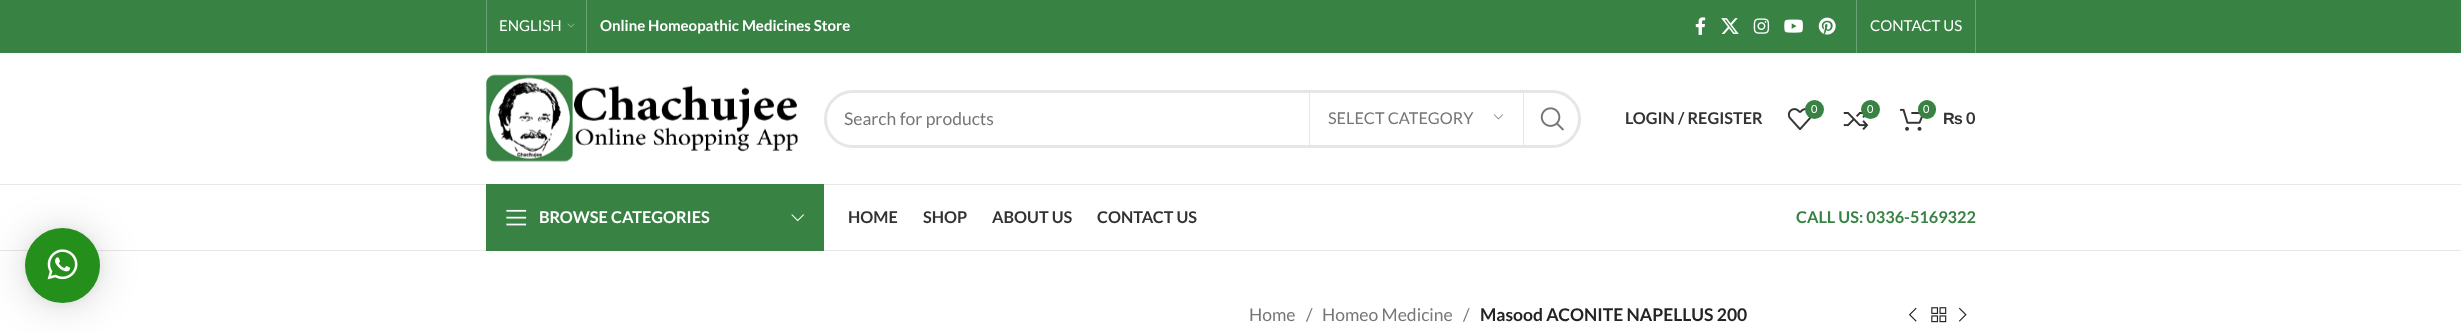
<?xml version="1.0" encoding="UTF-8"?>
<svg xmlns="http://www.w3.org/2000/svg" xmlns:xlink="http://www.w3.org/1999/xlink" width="2461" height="332">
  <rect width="100%" height="100%" fill="#ffffff" />
  <rect y="184" width="2461" height="1" fill="#e8e8e8" />
  <rect y="250" width="2461" height="1" fill="#e8e8e8" />
  <rect x="25" y="230" width="75" height="75" rx="37.5" fill="#000000" fill-opacity="0.16" filter="blur(20px)" />
  <rect x="25" y="229" width="75" height="75" rx="37.5" fill="#000000" fill-opacity="0.06" filter="blur(4px)" />
  <circle cx="62.5" cy="265.5" r="37.5" fill="#248f1a" />
  <image x="47" y="249" width="31" height="31" xlink:href="image1.png" />
  <rect width="2461" height="53" fill="#388243" />
  <rect x="486" width="1" height="53" fill="#6aa172" />
  <image x="567" y="23" width="8" height="5" xlink:href="image2.png" />
  <rect x="586" width="1" height="53" fill="#6aa172" />
  <image x="1695" y="17" width="11" height="18" xlink:href="image3.png" />
  <image x="1721" y="18" width="18" height="16" xlink:href="image4.png" />
  <image x="1753" y="18" width="17" height="16" xlink:href="image5.png" />
  <image x="1784" y="19" width="19" height="14" xlink:href="image6.png" />
  <image x="1818" y="17" width="18" height="18" xlink:href="image7.png" />
  <rect x="1856" width="1" height="53" fill="#6aa172" />
  <rect x="1975" width="1" height="53" fill="#6aa172" />
  <image x="486" y="74" width="312" height="88" xlink:href="image8.png" />
  <rect x="825.5" y="91.5" width="754" height="55" rx="27.5" fill="none" stroke="#e6e6e6" stroke-width="3" />
  <rect x="1523" y="93" width="1" height="52" fill="#e6e6e6" />
  <rect x="1309" y="93" width="1" height="52" fill="#e6e6e6" />
  <image x="1493" y="114" width="10" height="6" xlink:href="image9.png" />
  <image x="1540" y="107" width="24" height="24" xlink:href="image10.png" />
  <image x="1787" y="108" width="25" height="22" xlink:href="image11.png" />
  <circle cx="1814.5" cy="109.5" r="9.5" fill="#388243" />
  <image x="1843" y="112" width="26" height="18" xlink:href="image12.png" />
  <circle cx="1870.5" cy="109.5" r="9.5" fill="#388243" />
  <image x="1900" y="108" width="23" height="23" xlink:href="image13.png" />
  <rect x="1918" y="100" width="18" height="19" rx="9" fill="#388243" />
  <rect x="486" y="184" width="338" height="67" fill="#388243" />
  <image x="506" y="209" width="21" height="17" xlink:href="image14.png" />
  <image x="791" y="214" width="13" height="8" xlink:href="image15.png" />
  <image x="1908" y="307" width="9" height="15" xlink:href="image16.png" />
  <image x="1931" y="307" width="16" height="16" xlink:href="image17.png" />
  <image x="1958" y="307" width="9" height="15" xlink:href="image18.png" />
  <text x="499" y="31" style="font-family: Lato; font-size: 15px; fill: #ffffff">ENGLISH</text>
  <text x="600" y="31" style="font-family: Lato; font-size: 15px; font-weight: bold; fill: #ffffff">Online Homeopathic Medicines Store</text>
  <text x="1870" y="31" style="font-family: Lato; font-size: 15px; fill: #ffffff">CONTACT US</text>
  <text x="844" y="125" style="font-family: Lato; font-size: 17.5px; fill: #767676">Search for products</text>
  <text x="1328" y="124" style="font-family: Lato; font-size: 16.25px; fill: #767676">SELECT CATEGORY</text>
  <text x="1625" y="124" style="font-family: Lato; font-size: 16.25px; font-weight: bold; fill: #333333">LOGIN / REGISTER</text>
  <text x="1811" y="113" style="font-family: Lato; font-size: 11px; fill: #ffffff">0</text>
  <text x="1867" y="113" style="font-family: Lato; font-size: 11px; fill: #ffffff">0</text>
  <text x="1923" y="113" style="font-family: Lato; font-size: 11px; fill: #ffffff">0</text>
  <text x="1943" y="124" style="font-family: Liberation Sans; font-size: 16.25px; font-weight: bold; fill: #333333">₨</text>
  <text x="1966" y="124" style="font-family: Lato; font-size: 16.25px; font-weight: bold; fill: #333333">0</text>
  <text x="539" y="223" style="font-family: Lato; font-size: 16.25px; font-weight: bold; fill: #ffffff">BROWSE CATEGORIES</text>
  <text x="848" y="223" style="font-family: Lato; font-size: 16.25px; font-weight: bold; fill: #333333">HOME</text>
  <text x="923" y="223" style="font-family: Lato; font-size: 16.25px; font-weight: bold; fill: #333333">SHOP</text>
  <text x="992" y="223" style="font-family: Lato; font-size: 16.25px; font-weight: bold; fill: #333333">ABOUT US</text>
  <text x="1097" y="223" style="font-family: Lato; font-size: 16.25px; font-weight: bold; fill: #333333">CONTACT US</text>
  <text x="1796" y="223" style="font-family: Lato; font-size: 16.25px; font-weight: bold; fill: #388243">CALL US: 0336-5169322</text>
  <text x="1249" y="321" style="font-family: Lato; font-size: 17.5px; fill: #767676">Home</text>
  <text x="1306" y="321" style="font-family: Lato; font-size: 17.5px; fill: #767676">/</text>
  <text x="1322" y="321" style="font-family: Lato; font-size: 17.5px; fill: #767676">Homeo Medicine</text>
  <text x="1463" y="321" style="font-family: Lato; font-size: 17.5px; fill: #767676">/</text>
  <text x="1480" y="321" style="font-family: Lato; font-size: 17.5px; font-weight: bold; fill: #242424">Masood ACONITE NAPELLUS 200</text>
</svg>
